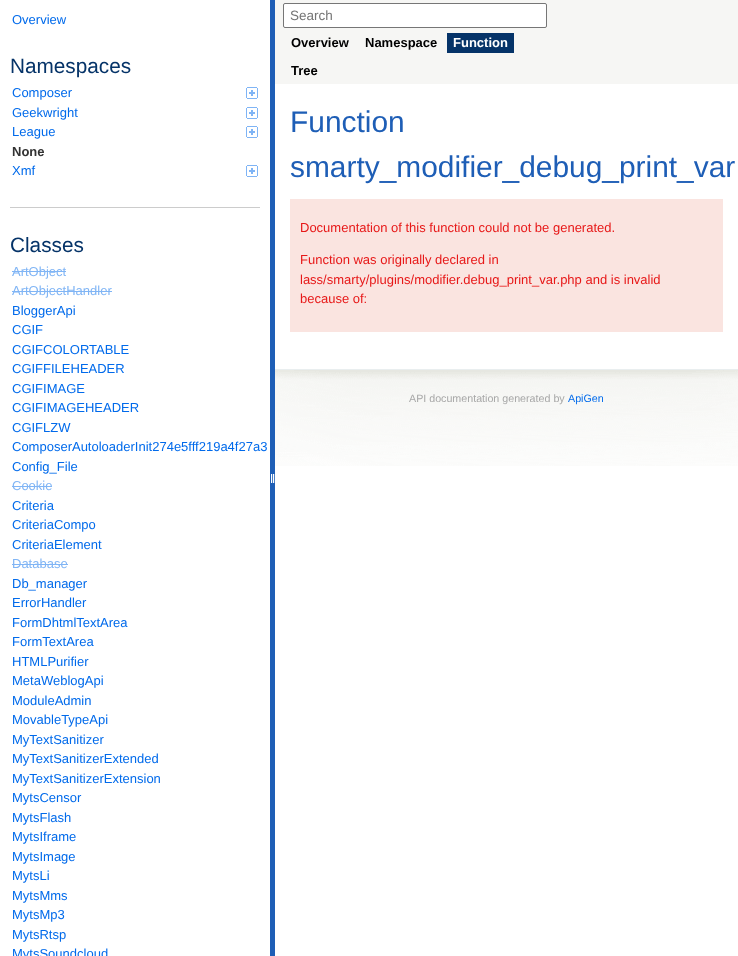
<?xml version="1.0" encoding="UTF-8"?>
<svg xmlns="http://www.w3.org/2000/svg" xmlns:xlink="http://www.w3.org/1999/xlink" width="738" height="956">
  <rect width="100%" height="100%" fill="#ffffff" />
  <image x="246" y="87" width="12" height="12" xlink:href="image1.png" />
  <image x="246" y="107" width="12" height="12" xlink:href="image1.png" />
  <image x="246" y="126" width="12" height="12" xlink:href="image1.png" />
  <image x="246" y="165" width="12" height="12" xlink:href="image1.png" />
  <rect x="10" y="207" width="250" height="1" fill="#cccccc" />
  <rect x="12" y="271" width="54" height="1" fill="#80b5f5" />
  <rect x="12" y="291" width="100" height="1" fill="#80b5f5" />
  <rect x="12" y="486" width="40" height="1" fill="#80b5f5" />
  <rect x="12" y="564" width="56" height="1" fill="#80b5f5" />
  <rect x="270" width="5" height="956" fill="#1e5eb6" />
  <image x="271" y="474" width="4" height="9" xlink:href="image2.png" />
  <rect x="275" width="463" height="84" fill="#f6f6f4" />
  <rect x="283.5" y="3.5" width="263" height="24" rx="1.5" fill="#ffffff" stroke="#767676" />
  <rect x="447" y="33" width="67" height="20" fill="#053368" />
  <rect x="290" y="199" width="433" height="133" fill="#fae4e0" />
  <image x="275" y="370" width="463" height="96" xlink:href="image3.png" />
  <rect x="275" y="369" width="463" height="1" fill="#e9eeef" />
  <text x="12" y="24" style="font-family: Liberation Sans; font-size: 13px; fill: #006aeb">Overview</text>
  <text x="10" y="73" style="font-family: Liberation Sans; font-size: 20.75px; fill: #053368">Namespaces</text>
  <text x="12" y="97" style="font-family: Liberation Sans; font-size: 13px; fill: #006aeb">Composer</text>
  <text x="12" y="117" style="font-family: Liberation Sans; font-size: 13px; fill: #006aeb">Geekwright</text>
  <text x="12" y="136" style="font-family: Liberation Sans; font-size: 13px; fill: #006aeb">League</text>
  <text x="12" y="156" style="font-family: Liberation Sans; font-size: 13px; font-weight: bold; fill: #333333">None</text>
  <text x="12" y="175" style="font-family: Liberation Sans; font-size: 13px; fill: #006aeb">Xmf</text>
  <text x="10" y="252" style="font-family: Liberation Sans; font-size: 20.75px; fill: #053368">Classes</text>
  <text x="12" y="276" style="font-family: Liberation Sans; font-size: 13px; fill: #80b5f5">ArtObject</text>
  <text x="12" y="295" style="font-family: Liberation Sans; font-size: 13px; fill: #80b5f5">ArtObjectHandler</text>
  <text x="12" y="315" style="font-family: Liberation Sans; font-size: 13px; fill: #006aeb">BloggerApi</text>
  <text x="12" y="334" style="font-family: Liberation Sans; font-size: 13px; fill: #006aeb">CGIF</text>
  <text x="12" y="354" style="font-family: Liberation Sans; font-size: 13px; fill: #006aeb">CGIFCOLORTABLE</text>
  <text x="12" y="373" style="font-family: Liberation Sans; font-size: 13px; fill: #006aeb">CGIFFILEHEADER</text>
  <text x="12" y="393" style="font-family: Liberation Sans; font-size: 13px; fill: #006aeb">CGIFIMAGE</text>
  <text x="12" y="412" style="font-family: Liberation Sans; font-size: 13px; fill: #006aeb">CGIFIMAGEHEADER</text>
  <text x="12" y="432" style="font-family: Liberation Sans; font-size: 13px; fill: #006aeb">CGIFLZW</text>
  <text x="12" y="451" style="font-family: Liberation Sans; font-size: 13px; fill: #006aeb">ComposerAutoloaderInit274e5fff219a4f27a3</text>
  <text x="12" y="471" style="font-family: Liberation Sans; font-size: 13px; fill: #006aeb">Config_File</text>
  <text x="12" y="490" style="font-family: Liberation Sans; font-size: 13px; fill: #80b5f5">Cookie</text>
  <text x="12" y="510" style="font-family: Liberation Sans; font-size: 13px; fill: #006aeb">Criteria</text>
  <text x="12" y="529" style="font-family: Liberation Sans; font-size: 13px; fill: #006aeb">CriteriaCompo</text>
  <text x="12" y="549" style="font-family: Liberation Sans; font-size: 13px; fill: #006aeb">CriteriaElement</text>
  <text x="12" y="568" style="font-family: Liberation Sans; font-size: 13px; fill: #80b5f5">Database</text>
  <text x="12" y="588" style="font-family: Liberation Sans; font-size: 13px; fill: #006aeb">Db_manager</text>
  <text x="12" y="607" style="font-family: Liberation Sans; font-size: 13px; fill: #006aeb">ErrorHandler</text>
  <text x="12" y="627" style="font-family: Liberation Sans; font-size: 13px; fill: #006aeb">FormDhtmlTextArea</text>
  <text x="12" y="646" style="font-family: Liberation Sans; font-size: 13px; fill: #006aeb">FormTextArea</text>
  <text x="12" y="666" style="font-family: Liberation Sans; font-size: 13px; fill: #006aeb">HTMLPurifier</text>
  <text x="12" y="685" style="font-family: Liberation Sans; font-size: 13px; fill: #006aeb">MetaWeblogApi</text>
  <text x="12" y="705" style="font-family: Liberation Sans; font-size: 13px; fill: #006aeb">ModuleAdmin</text>
  <text x="12" y="724" style="font-family: Liberation Sans; font-size: 13px; fill: #006aeb">MovableTypeApi</text>
  <text x="12" y="744" style="font-family: Liberation Sans; font-size: 13px; fill: #006aeb">MyTextSanitizer</text>
  <text x="12" y="763" style="font-family: Liberation Sans; font-size: 13px; fill: #006aeb">MyTextSanitizerExtended</text>
  <text x="12" y="783" style="font-family: Liberation Sans; font-size: 13px; fill: #006aeb">MyTextSanitizerExtension</text>
  <text x="12" y="802" style="font-family: Liberation Sans; font-size: 13px; fill: #006aeb">MytsCensor</text>
  <text x="12" y="822" style="font-family: Liberation Sans; font-size: 13px; fill: #006aeb">MytsFlash</text>
  <text x="12" y="841" style="font-family: Liberation Sans; font-size: 13px; fill: #006aeb">MytsIframe</text>
  <text x="12" y="861" style="font-family: Liberation Sans; font-size: 13px; fill: #006aeb">MytsImage</text>
  <text x="12" y="880" style="font-family: Liberation Sans; font-size: 13px; fill: #006aeb">MytsLi</text>
  <text x="12" y="900" style="font-family: Liberation Sans; font-size: 13px; fill: #006aeb">MytsMms</text>
  <text x="12" y="919" style="font-family: Liberation Sans; font-size: 13px; fill: #006aeb">MytsMp3</text>
  <text x="12" y="939" style="font-family: Liberation Sans; font-size: 13px; fill: #006aeb">MytsRtsp</text>
  <text x="12" y="958" style="font-family: Liberation Sans; font-size: 13px; fill: #006aeb">MytsSoundcloud</text>
  <text x="290" y="20" style="font-family: Liberation Sans; font-size: 13.5px; fill: #757575">Search</text>
  <text x="291" y="47" style="font-family: Liberation Sans; font-size: 13px; font-weight: bold; fill: #000000">Overview</text>
  <text x="365" y="47" style="font-family: Liberation Sans; font-size: 13px; font-weight: bold; fill: #000000">Namespace</text>
  <text x="453" y="47" style="font-family: Liberation Sans; font-size: 13px; font-weight: bold; fill: #ffffff">Function</text>
  <text x="291" y="75" style="font-family: Liberation Sans; font-size: 13px; font-weight: bold; fill: #000000">Tree</text>
  <text x="290" y="132" style="font-family: Liberation Sans; font-size: 29.9px; fill: #1e5eb6">Function</text>
  <text x="290" y="177" style="font-family: Liberation Sans; font-size: 29.9px; fill: #1e5eb6">smarty_modifier_debug_print_var</text>
  <text x="300" y="232" style="font-family: Liberation Sans; font-size: 13px; fill: #e71818">Documentation of this function could not be generated.</text>
  <text x="300" y="264" style="font-family: Liberation Sans; font-size: 13px; fill: #e71818">Function was originally declared in</text>
  <text x="300" y="284" style="font-family: Liberation Sans; font-size: 13px; fill: #e71818">lass/smarty/plugins/modifier.debug_print_var.php and is invalid</text>
  <text x="300" y="303" style="font-family: Liberation Sans; font-size: 13px; fill: #e71818">because of:</text>
  <text x="409" y="402" style="font-family: Liberation Sans; font-size: 10.7px; fill: #a7a7a7">API documentation generated by</text>
  <text x="568" y="402" style="font-family: Liberation Sans; font-size: 10.7px; fill: #006aeb">ApiGen</text>
</svg>
